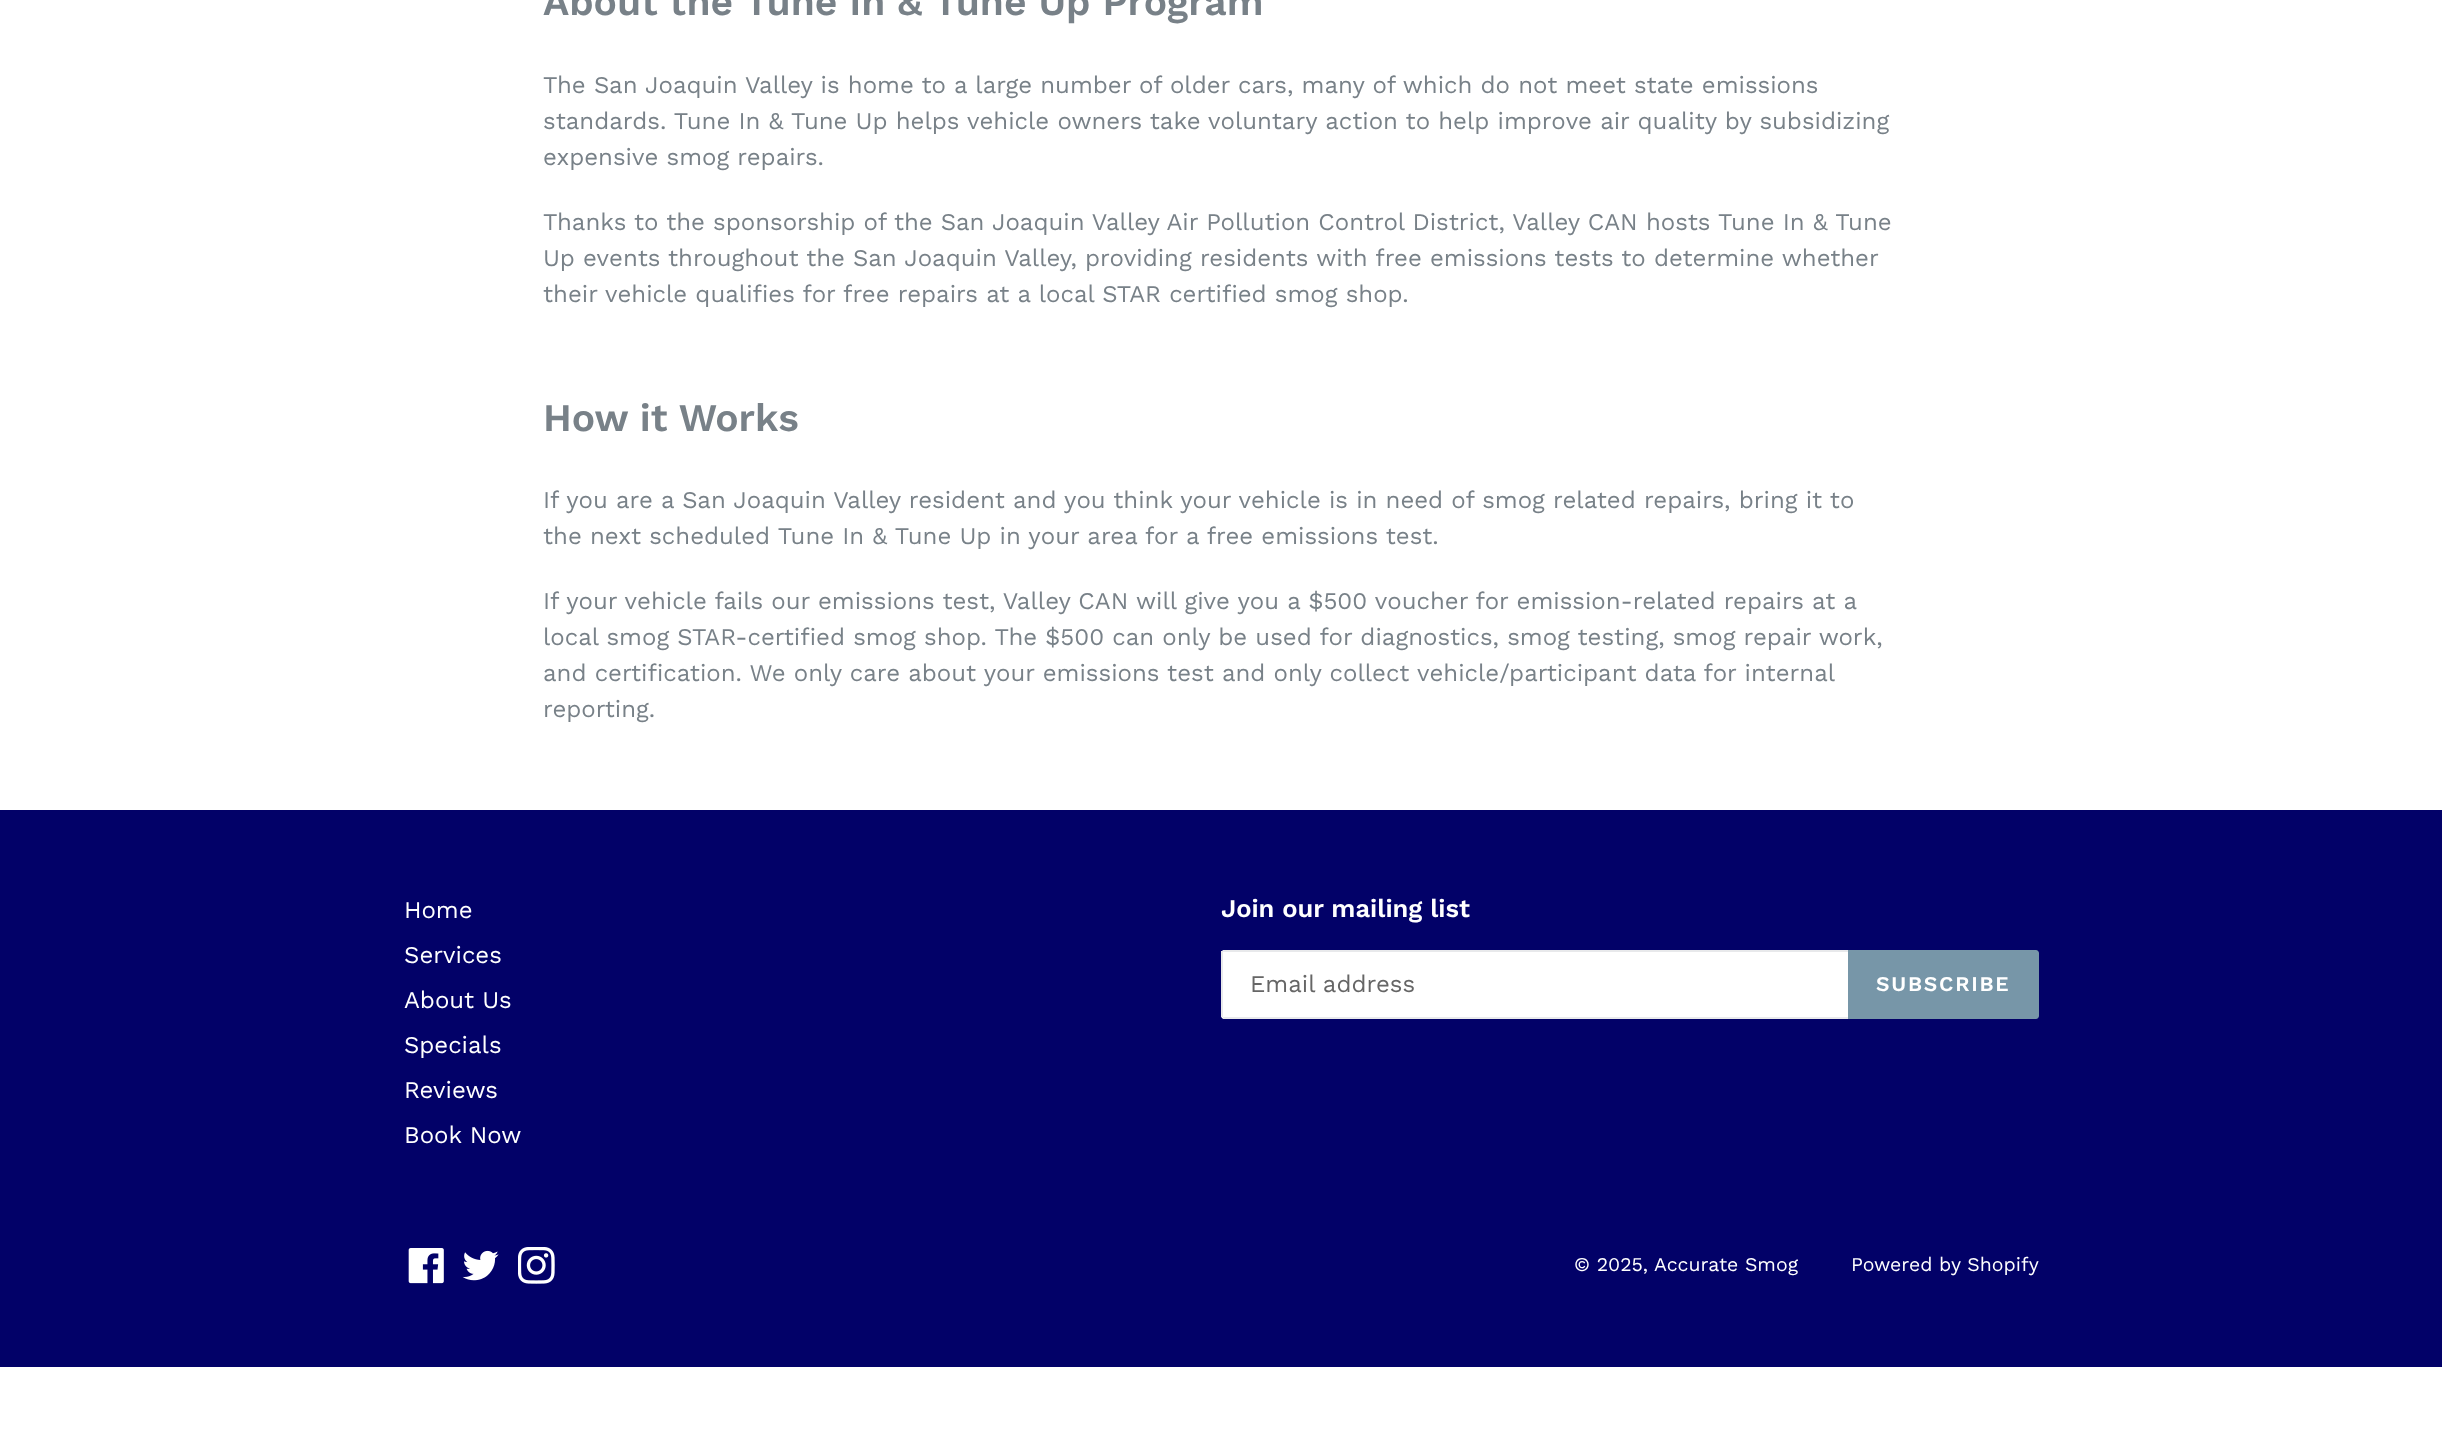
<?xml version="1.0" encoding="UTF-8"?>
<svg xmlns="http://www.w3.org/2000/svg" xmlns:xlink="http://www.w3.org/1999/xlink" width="2442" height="1448">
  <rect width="100%" height="100%" fill="#ffffff" />
  <rect y="810" width="2442" height="557" fill="#020168" />
  <path d="M 1224 950 h 624 v 69 h -624 c -1.5 0 -3 -1.5 -3 -3 v -63 c 0 -1.5 1.5 -3 3 -3 z" fill="#ffffff" />
  <rect x="1223" y="950" width="625" height="2" fill="#e8e9eb" />
  <rect x="1223" y="1017" width="625" height="2" fill="#e8e9eb" />
  <rect x="1221" y="951" width="2" height="66" fill="#e8e9eb" />
  <path d="M 1848 950 h 188 c 1.5 0 3 1.5 3 3 v 63 c 0 1.5 -1.5 3 -3 3 h -188 z" fill="#7796a8" />
  <image x="408" y="1248" width="36" height="36" xlink:href="image1.png" />
  <image x="462" y="1250" width="37" height="31" xlink:href="image2.png" />
  <image x="518" y="1247" width="37" height="37" xlink:href="image3.png" />
  <text x="543" y="15" style="font-family: Work Sans; font-size: 39px; font-weight: 600; fill: #788188">About the Tune In &amp; Tune Up Program</text>
  <text x="543" y="93" style="font-family: Work Sans; font-size: 24px; fill: #788188">The San Joaquin Valley is home to a large number of older cars, many of which do not meet state emissions</text>
  <text x="543" y="129" style="font-family: Work Sans; font-size: 24px; fill: #788188">standards. Tune In &amp; Tune Up helps vehicle owners take voluntary action to help improve air quality by subsidizing</text>
  <text x="543" y="165" style="font-family: Work Sans; font-size: 24px; fill: #788188">expensive smog repairs.</text>
  <text x="543" y="230" style="font-family: Work Sans; font-size: 24px; fill: #788188">Thanks to the sponsorship of the San Joaquin Valley Air Pollution Control District, Valley CAN hosts Tune In &amp; Tune</text>
  <text x="543" y="266" style="font-family: Work Sans; font-size: 24px; fill: #788188">Up events throughout the San Joaquin Valley, providing residents with free emissions tests to determine whether</text>
  <text x="543" y="302" style="font-family: Work Sans; font-size: 24px; fill: #788188">their vehicle qualifies for free repairs at a local STAR certified smog shop.</text>
  <text x="543" y="431" style="font-family: Work Sans; font-size: 39px; font-weight: 600; fill: #788188">How it Works</text>
  <text x="543" y="508" style="font-family: Work Sans; font-size: 24px; fill: #788188">If you are a San Joaquin Valley resident and you think your vehicle is in need of smog related repairs, bring it to</text>
  <text x="543" y="544" style="font-family: Work Sans; font-size: 24px; fill: #788188">the next scheduled Tune In &amp; Tune Up in your area for a free emissions test.</text>
  <text x="543" y="609" style="font-family: Work Sans; font-size: 24px; fill: #788188">If your vehicle fails our emissions test, Valley CAN will give you a $500 voucher for emission-related repairs at a</text>
  <text x="543" y="645" style="font-family: Work Sans; font-size: 24px; fill: #788188">local smog STAR-certified smog shop. The $500 can only be used for diagnostics, smog testing, smog repair work,</text>
  <text x="543" y="681" style="font-family: Work Sans; font-size: 24px; fill: #788188">and certification. We only care about your emissions test and only collect vehicle/participant data for internal</text>
  <text x="543" y="717" style="font-family: Work Sans; font-size: 24px; fill: #788188">reporting.</text>
  <text x="404" y="918" style="font-family: Work Sans; font-size: 24px; fill: #ffffff">Home</text>
  <text x="404" y="963" style="font-family: Work Sans; font-size: 24px; fill: #ffffff">Services</text>
  <text x="404" y="1008" style="font-family: Work Sans; font-size: 24px; fill: #ffffff">About Us</text>
  <text x="404" y="1053" style="font-family: Work Sans; font-size: 24px; fill: #ffffff">Specials</text>
  <text x="404" y="1098" style="font-family: Work Sans; font-size: 24px; fill: #ffffff">Reviews</text>
  <text x="404" y="1143" style="font-family: Work Sans; font-size: 24px; fill: #ffffff">Book Now</text>
  <text x="1221" y="917" style="font-family: Work Sans; font-size: 25.5px; font-weight: 600; fill: #ffffff">Join our mailing list</text>
  <text x="1250" y="992" style="font-family: Work Sans; font-size: 24px; fill: #666666">Email address</text>
  <text x="1876" y="991" style="font-family: Work Sans; font-size: 21px; font-weight: 600; letter-spacing: 1.75px; fill: #ffffff">SUBSCRIBE</text>
  <text x="1574" y="1271" style="font-family: Work Sans; font-size: 19.5px; fill: #ffffff">© 2025,</text>
  <text x="1654" y="1271" style="font-family: Work Sans; font-size: 19.5px; fill: #ffffff">Accurate Smog</text>
  <text x="1851" y="1271" style="font-family: Work Sans; font-size: 19.5px; fill: #ffffff">Powered by Shopify</text>
</svg>
